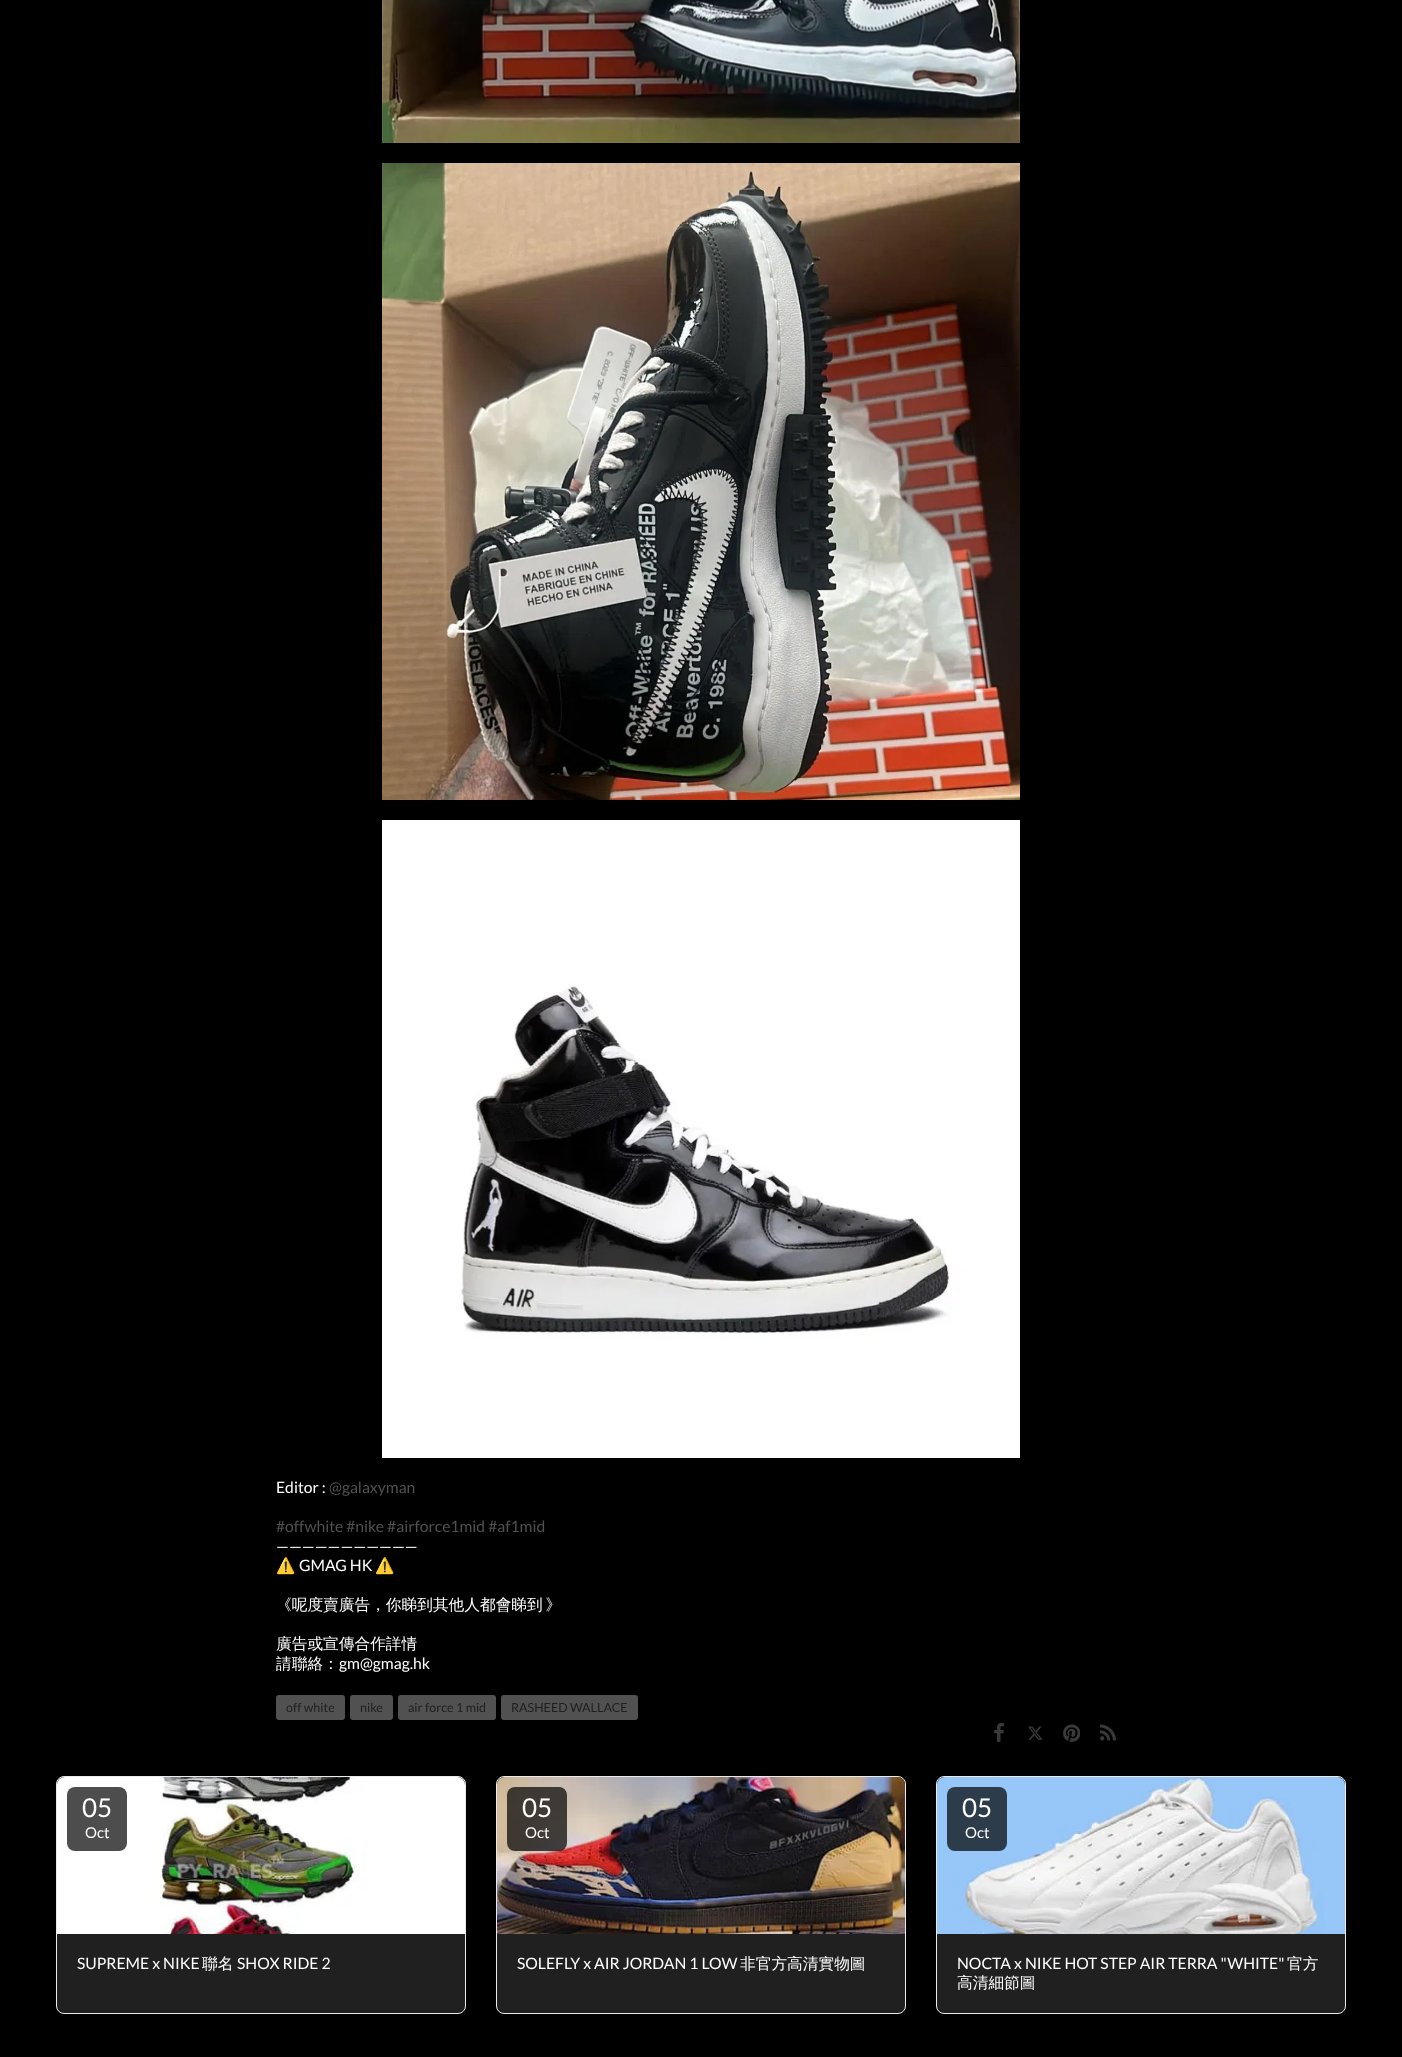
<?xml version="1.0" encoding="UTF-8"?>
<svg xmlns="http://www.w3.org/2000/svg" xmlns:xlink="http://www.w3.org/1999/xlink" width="1402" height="2057">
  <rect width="100%" height="100%" fill="#000000" />
  <image x="382" y="0" width="638" height="143" xlink:href="image1.png" />
  <image x="382" y="163" width="638" height="637" xlink:href="image2.png" />
  <image x="382" y="820" width="638" height="638" xlink:href="image3.png" />
  <rect x="276" y="1695" width="69" height="25" rx="3" fill="#515151" />
  <rect x="350" y="1695" width="43" height="25" rx="3" fill="#515151" />
  <rect x="398" y="1695" width="98" height="25" rx="3" fill="#515151" />
  <rect x="501" y="1695" width="137" height="25" rx="3" fill="#515151" />
  <image x="994" y="1723" width="10" height="19" xlink:href="image4.png" />
  <image x="1028" y="1726" width="15" height="14" xlink:href="image5.png" />
  <image x="1063" y="1724" width="17" height="18" xlink:href="image6.png" />
  <image x="1100" y="1724" width="16" height="17" xlink:href="image7.png" />
  <rect x="56.5" y="1776.5" width="409" height="237" rx="7.5" fill="#202020" stroke="#ebebeb" />
  <image x="57" y="1777" width="408" height="157" xlink:href="image8.png" />
  <rect x="67" y="1787" width="60" height="64" rx="8" fill="#4d4d4d" />
  <rect x="496.5" y="1776.5" width="409" height="237" rx="7.5" fill="#202020" stroke="#ebebeb" />
  <image x="497" y="1777" width="408" height="157" xlink:href="image9.png" />
  <rect x="507" y="1787" width="60" height="64" rx="8" fill="#000000" fill-opacity="0.7" />
  <rect x="936.5" y="1776.5" width="409" height="237" rx="7.5" fill="#202020" stroke="#ebebeb" />
  <image x="937" y="1777" width="408" height="157" xlink:href="image10.png" />
  <rect x="947" y="1787" width="60" height="64" rx="8" fill="#2d3c4a" />
  <text x="276" y="1493" style="font-family: Lato; font-size: 15.7px; fill: #ffffff">Editor :</text>
  <text x="329" y="1493" style="font-family: Lato; font-size: 15.7px; fill: #515151">@galaxyman</text>
  <text x="276" y="1532" style="font-family: Lato; font-size: 15.7px; fill: #515151">#offwhite #nike #airforce1mid #af1mid</text>
  <text x="276" y="1552" style="font-family: Lato; font-size: 15.7px; fill: #ffffff">———————————</text>
  <text x="276" y="1571" style="font-family: Noto Color Emoji; font-size: 15.7px; fill: #ffffff">⚠️</text>
  <text x="299" y="1571" style="font-family: Lato; font-size: 15.7px; fill: #ffffff">GMAG HK</text>
  <text x="375" y="1571" style="font-family: Noto Color Emoji; font-size: 15.7px; fill: #ffffff">⚠️</text>
  <text x="276" y="1610" word-spacing="-2" style="font-family: WenQuanYi Zen Hei; font-size: 15.7px; font-weight: 500; fill: #ffffff">《呢度賣廣告，你睇到其他人都會睇到 》</text>
  <text x="276" y="1649" style="font-family: WenQuanYi Zen Hei; font-size: 15.7px; font-weight: 500; fill: #ffffff">廣告或宣傳合作詳情</text>
  <text x="276" y="1669" style="font-family: WenQuanYi Zen Hei; font-size: 15.7px; font-weight: 500; fill: #ffffff">請聯絡：</text>
  <text x="339" y="1669" style="font-family: Lato; font-size: 15.7px; fill: #ffffff">gm@gmag.hk</text>
  <text x="286" y="1712" style="font-family: Lato; font-size: 12.5px; fill: #202020">off white</text>
  <text x="360" y="1712" style="font-family: Lato; font-size: 12.5px; fill: #202020">nike</text>
  <text x="408" y="1712" style="font-family: Lato; font-size: 12.5px; fill: #202020">air force 1 mid</text>
  <text x="511" y="1712" style="font-family: Lato; font-size: 12.5px; fill: #202020">RASHEED WALLACE</text>
  <text x="82" y="1817" style="font-family: Lato; font-size: 26px; fill: #ffffff">05</text>
  <text x="85" y="1838" style="font-family: Lato; font-size: 15px; fill: #ffffff">Oct</text>
  <text x="77" y="1969" style="font-family: Lato; font-size: 15.7px; fill: #ffffff">SUPREME x NIKE</text>
  <text x="202" y="1969" style="font-family: WenQuanYi Zen Hei; font-size: 15.7px; font-weight: 500; fill: #ffffff">聯名</text>
  <text x="237" y="1969" style="font-family: Lato; font-size: 15.7px; fill: #ffffff">SHOX RIDE 2</text>
  <text x="522" y="1817" style="font-family: Lato; font-size: 26px; fill: #ffffff">05</text>
  <text x="525" y="1838" style="font-family: Lato; font-size: 15px; fill: #ffffff">Oct</text>
  <text x="517" y="1969" style="font-family: Lato; font-size: 15.7px; fill: #ffffff">SOLEFLY x AIR JORDAN 1 LOW</text>
  <text x="740" y="1969" style="font-family: WenQuanYi Zen Hei; font-size: 15.7px; font-weight: 500; fill: #ffffff">非官方高清實物圖</text>
  <text x="962" y="1817" style="font-family: Lato; font-size: 26px; fill: #ffffff">05</text>
  <text x="965" y="1838" style="font-family: Lato; font-size: 15px; fill: #ffffff">Oct</text>
  <text x="957" y="1969" style="font-family: Lato; font-size: 15.7px; fill: #ffffff">NOCTA x NIKE HOT STEP AIR TERRA "WHITE"</text>
  <text x="1287" y="1969" style="font-family: WenQuanYi Zen Hei; font-size: 15.7px; font-weight: 500; fill: #ffffff">官方</text>
  <text x="957" y="1988" style="font-family: WenQuanYi Zen Hei; font-size: 15.7px; font-weight: 500; fill: #ffffff">高清細節圖</text>
</svg>
